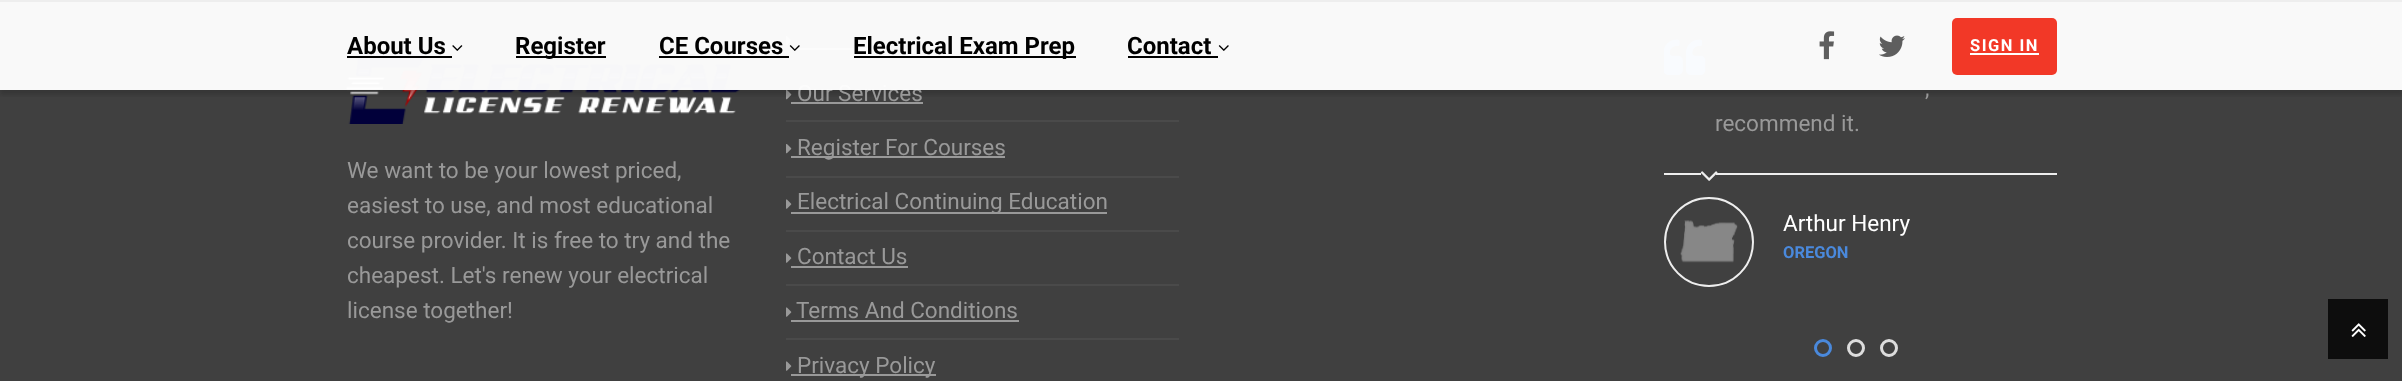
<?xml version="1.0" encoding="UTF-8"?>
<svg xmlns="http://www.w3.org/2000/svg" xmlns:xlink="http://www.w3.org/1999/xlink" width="2402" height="381">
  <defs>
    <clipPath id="clip1"><rect x="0" y="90" width="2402" height="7" /></clipPath>
  </defs>
  <rect width="100%" height="100%" fill="#404040" />
  <image x="346" y="53" width="394" height="71" xlink:href="image6.png" />
  <rect x="786" y="66" width="393" height="2" fill="#4a4a4a" />
  <image x="786" y="36" width="6" height="10" xlink:href="image7.png" />
  <rect x="791" y="48" width="97" height="2" fill="#999999" />
  <image x="786" y="90" width="6" height="10" xlink:href="image7.png" />
  <image x="1664" y="39" width="42" height="36" xlink:href="image9.png" />
  <g clip-path="url(#clip1)">
    <rect y="5" width="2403" height="90" fill="#000000" fill-opacity="0.15" filter="blur(2px)" />
  </g>
  <rect width="2402" height="2" fill="#eeeeee" />
  <rect x="786" y="120" width="393" height="2" fill="#4a4a4a" />
  <rect x="791" y="102" width="132" height="2" fill="#999999" />
  <rect x="786" y="176" width="393" height="2" fill="#4a4a4a" />
  <image x="786" y="144" width="6" height="10" xlink:href="image7.png" />
  <rect x="791" y="156" width="214" height="2" fill="#999999" />
  <rect x="786" y="230" width="393" height="2" fill="#4a4a4a" />
  <image x="786" y="199" width="6" height="10" xlink:href="image8.png" />
  <rect x="791" y="212" width="316" height="2" fill="#999999" />
  <rect x="786" y="284" width="393" height="2" fill="#4a4a4a" />
  <image x="786" y="253" width="6" height="10" xlink:href="image8.png" />
  <rect x="791" y="266" width="117" height="2" fill="#999999" />
  <rect x="786" y="338" width="393" height="2" fill="#4a4a4a" />
  <image x="786" y="307" width="6" height="10" xlink:href="image8.png" />
  <rect x="791" y="320" width="228" height="2" fill="#999999" />
  <image x="786" y="361" width="6" height="10" xlink:href="image8.png" />
  <rect x="791" y="374" width="145" height="2" fill="#999999" />
  <rect x="1664" y="173" width="393" height="2" fill="#eeeeee" />
  <rect x="1701" y="173" width="15" height="2" fill="#404040" />
  <image x="1700" y="171" width="18" height="10" xlink:href="image10.png" />
  <circle cx="1709" cy="242" r="44" fill="none" stroke="#eeeeee" stroke-width="2" />
  <image x="1680" y="220" width="58" height="43" xlink:href="image11.png" />
  <circle cx="1823" cy="348" r="7.5" fill="none" stroke="#4a89dc" stroke-width="3" />
  <circle cx="1856" cy="348" r="7.5" fill="none" stroke="#dddddd" stroke-width="3" />
  <circle cx="1889" cy="348" r="7.5" fill="none" stroke="#dddddd" stroke-width="3" />
  <rect x="2328" y="299" width="60" height="60" fill="#0d0d0d" />
  <image x="2351" y="323" width="15" height="14" xlink:href="image12.png" />
  <text x="347" y="178" style="font-family: Roboto; font-size: 22.5px; fill: #999999">We want to be your lowest priced,</text>
  <text x="347" y="213" style="font-family: Roboto; font-size: 22.5px; fill: #999999">easiest to use, and most educational</text>
  <text x="347" y="248" style="font-family: Roboto; font-size: 22.5px; fill: #999999">course provider. It is free to try and the</text>
  <text x="347" y="283" style="font-family: Roboto; font-size: 22.5px; fill: #999999">cheapest. Let's renew your electrical</text>
  <text x="347" y="318" style="font-family: Roboto; font-size: 22.5px; fill: #999999">license together!</text>
  <text x="797" y="101" style="font-family: Roboto; font-size: 22.5px; fill: #999999">Our Services</text>
  <rect y="2" width="2402" height="88" fill="#ffffff" fill-opacity="0.97" />
  <image x="1218" y="45" width="11" height="6" xlink:href="image3.png" />
  <text x="1127" y="54" style="font-family: Roboto; font-size: 24px; font-weight: bold; fill: #000000">Contact</text>
  <rect x="1128" y="56" width="90" height="2" fill="#000000" />
  <rect x="854" y="56" width="222" height="2" fill="#000000" />
  <text x="853" y="54" style="font-family: Roboto; font-size: 24px; font-weight: bold; fill: #000000">Electrical Exam Prep</text>
  <image x="789" y="45" width="11" height="6" xlink:href="image2.png" />
  <text x="659" y="54" style="font-family: Roboto; font-size: 24px; font-weight: bold; fill: #000000">CE Courses</text>
  <rect x="659" y="56" width="130" height="2" fill="#000000" />
  <rect x="516" y="56" width="90" height="2" fill="#000000" />
  <text x="515" y="54" style="font-family: Roboto; font-size: 24px; font-weight: bold; fill: #000000">Register</text>
  <image x="452" y="45" width="11" height="6" xlink:href="image1.png" />
  <text x="347" y="54" style="font-family: Roboto; font-size: 24px; font-weight: bold; fill: #000000">About Us</text>
  <rect x="347" y="56" width="105" height="2" fill="#000000" />
  <rect x="1952" y="18" width="105" height="57" rx="5" fill="#f23827" />
  <text x="1970" y="51" style="font-family: Roboto; font-size: 16.5px; font-weight: bold; letter-spacing: 1.5px; fill: #ffffff">SIGN IN</text>
  <rect x="1970" y="53" width="69" height="2" fill="#ffffff" />
  <image x="1879" y="35" width="26" height="22" xlink:href="image5.png" />
  <image x="1819" y="31" width="16" height="29" xlink:href="image4.png" />
  <text x="797" y="155" style="font-family: Roboto; font-size: 22.5px; fill: #999999">Register For Courses</text>
  <text x="797" y="209" style="font-family: Roboto; font-size: 22.5px; fill: #999999">Electrical Continuing Education</text>
  <text x="797" y="264" style="font-family: Roboto; font-size: 22.5px; fill: #999999">Contact Us</text>
  <text x="796" y="318" style="font-family: Roboto; font-size: 22.5px; fill: #999999">Terms And Conditions</text>
  <text x="797" y="373" style="font-family: Roboto; font-size: 22.5px; fill: #999999">Privacy Policy</text>
  <text x="1925" y="96" style="font-family: Roboto; font-size: 22.5px; fill: #999999">,</text>
  <text x="1715" y="131" style="font-family: Roboto; font-size: 22.5px; fill: #999999">recommend it.</text>
  <text x="1783" y="231" style="font-family: Roboto; font-size: 22.5px; fill: #ffffff">Arthur Henry</text>
  <text x="1783" y="258" style="font-family: Roboto; font-size: 16.5px; font-weight: bold; fill: #4a89dc">OREGON</text>
</svg>
